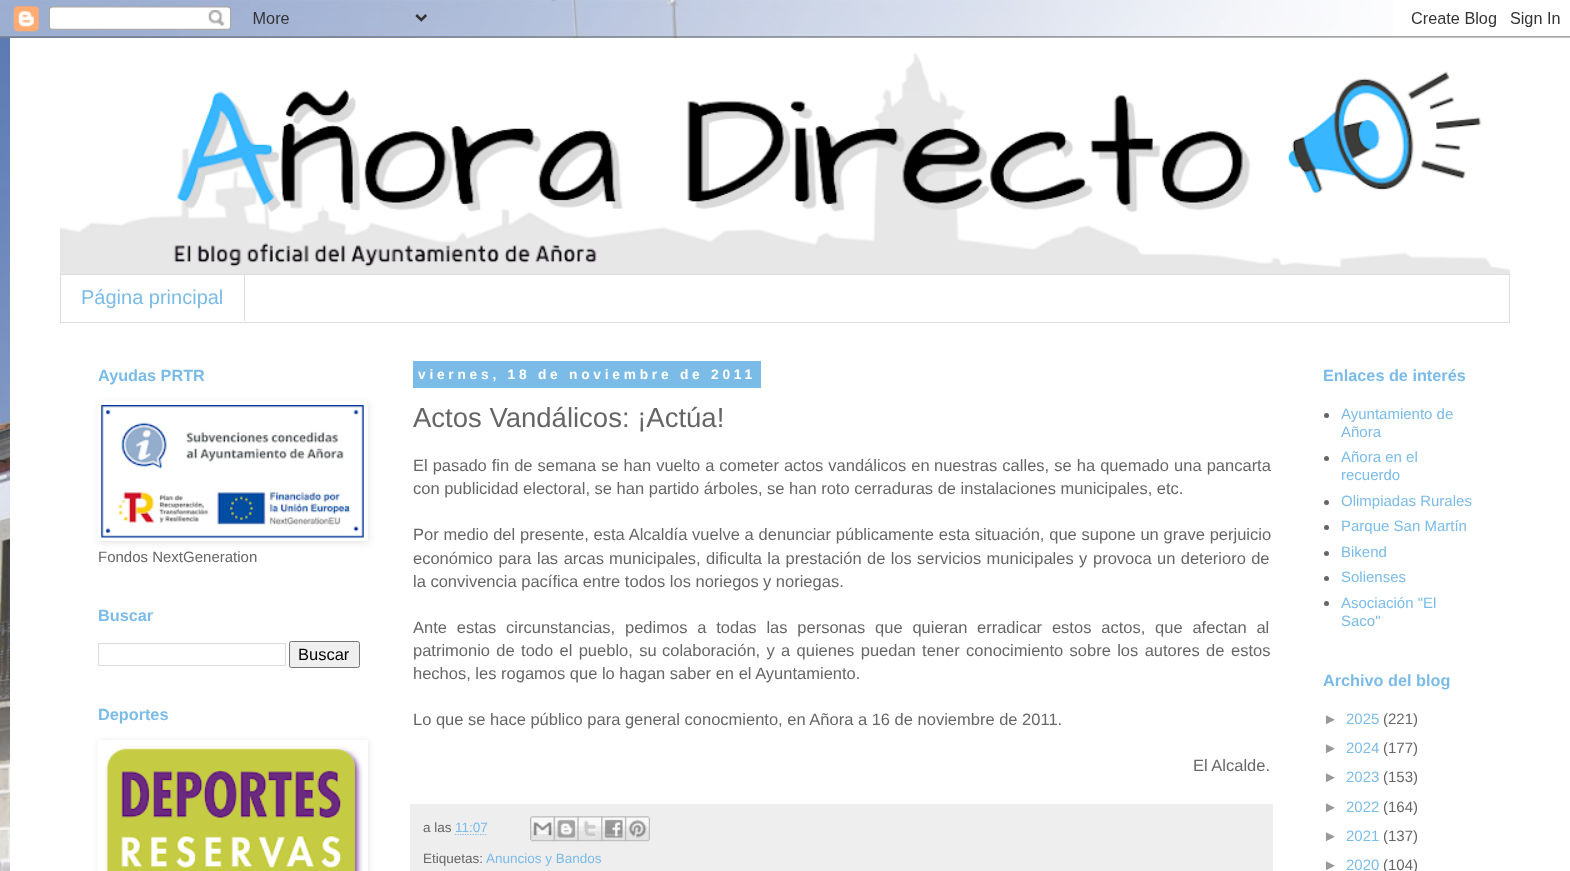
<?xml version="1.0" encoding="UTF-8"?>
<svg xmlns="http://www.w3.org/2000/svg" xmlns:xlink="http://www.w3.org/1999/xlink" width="1570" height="871">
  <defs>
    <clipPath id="clip1"><path d="M 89 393 h 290 v 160 h -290 z m 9 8 h 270 v 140 h -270 z" clip-rule="evenodd" /></clipPath>
    <clipPath id="clip2"><path d="M 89 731 h 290 v 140 h -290 z m 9 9 h 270 v 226 h -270 z" clip-rule="evenodd" /></clipPath>
  </defs>
  <rect width="100%" height="100%" fill="#ffffff" />
  <image x="0" y="0" width="1393" height="871" xlink:href="image1.png" />
  <image x="0" y="0" width="1570" height="38" xlink:href="image2.png" />
  <rect x="10" y="38" width="1383" height="833" fill="#ffffff" />
  <image x="60" y="53" width="1450" height="221" xlink:href="image3.png" />
  <rect x="60.5" y="274.5" width="1449" height="48" fill="none" stroke="#dddddd" />
  <rect x="244" y="275" width="1" height="46" fill="#dddddd" />
  <g clip-path="url(#clip1)">
    <rect x="99" y="403" width="270" height="140" fill="#000000" fill-opacity="0.1" filter="blur(3px)" />
  </g>
  <image x="101" y="405" width="263" height="133" xlink:href="image4.png" />
  <rect x="98.5" y="643.5" width="187" height="22" fill="none" stroke="#dddddd" />
  <rect x="289.5" y="641.5" width="70" height="26" rx="2" fill="#efefef" stroke="#767676" />
  <g clip-path="url(#clip2)">
    <rect x="99" y="741" width="270" height="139" fill="#000000" fill-opacity="0.1" filter="blur(3px)" />
  </g>
  <image x="105" y="746" width="258" height="125" xlink:href="image5.png" />
  <rect x="413" y="361" width="348" height="27" fill="#7bbbe8" />
  <rect x="410" y="804" width="863" height="67" fill="#eeeeee" />
  <path d="M 455 834.5 h 32.5" fill="none" stroke="#7bbbe8" stroke-width="1.2" stroke-dasharray="1.25 1.25" />
  <image x="530" y="816" width="25" height="26" xlink:href="image6.png" />
  <image x="553" y="816" width="26" height="26" xlink:href="image7.png" />
  <image x="577" y="816" width="26" height="26" xlink:href="image8.png" />
  <image x="601" y="816" width="26" height="26" xlink:href="image9.png" />
  <image x="625" y="816" width="25" height="26" xlink:href="image10.png" />
  <circle cx="1326.5" cy="415.5" r="2.5" fill="#666666" />
  <circle cx="1326.5" cy="458.5" r="2.5" fill="#666666" />
  <circle cx="1326.5" cy="502.5" r="2.5" fill="#666666" />
  <circle cx="1326.5" cy="527.5" r="2.5" fill="#666666" />
  <circle cx="1326.5" cy="553.5" r="2.5" fill="#666666" />
  <circle cx="1326.5" cy="578.5" r="2.5" fill="#666666" />
  <circle cx="1326.5" cy="603.5" r="2.5" fill="#666666" />
  <text x="81" y="304" style="font-family: Liberation Sans; font-size: 20px; fill: #7bbbe8">Página principal</text>
  <text x="98" y="381" style="font-family: Liberation Sans; font-size: 16.25px; font-weight: bold; fill: #7bbbe8">Ayudas PRTR</text>
  <text x="98" y="562" style="font-family: Liberation Sans; font-size: 15px; fill: #666666">Fondos NextGeneration</text>
  <text x="98" y="621" style="font-family: Liberation Sans; font-size: 16.25px; font-weight: bold; fill: #7bbbe8">Buscar</text>
  <text x="298" y="660" style="font-family: Liberation Sans; font-size: 16.5px; fill: #000000">Buscar</text>
  <text x="98" y="720" style="font-family: Liberation Sans; font-size: 16.25px; font-weight: bold; fill: #7bbbe8">Deportes</text>
  <text x="418" y="379" style="font-family: Liberation Sans; font-size: 13.75px; font-weight: bold; letter-spacing: 3.75px; fill: #ffffff">viernes, 18 de noviembre de 2011</text>
  <text x="413" y="427" style="font-family: Liberation Sans; font-size: 27.5px; fill: #666666">Actos Vandálicos: ¡Actúa!</text>
  <text x="413" y="471" word-spacing="0.4" style="font-family: Liberation Sans; font-size: 16.5px; fill: #666666">El pasado fin de semana se han vuelto a cometer actos vandálicos en</text>
  <text x="934" y="471" word-spacing="0.5" style="font-family: Liberation Sans; font-size: 16.5px; fill: #666666">nuestras calles, se ha quemado una pancarta</text>
  <text x="413" y="494" style="font-family: Liberation Sans; font-size: 16.5px; fill: #666666">con publicidad electoral, se han partido árboles, se han roto cerraduras de instalaciones municipales, etc.</text>
  <text x="413" y="540" word-spacing="0.2" style="font-family: Liberation Sans; font-size: 16.5px; fill: #666666">Por medio del presente, esta Alcaldía vuelve a denunciar públicamente esta situación, que supone un grave perjuicio</text>
  <text x="413" y="564" word-spacing="1" style="font-family: Liberation Sans; font-size: 16.5px; fill: #666666">económico para las arcas</text>
  <text x="609" y="564" word-spacing="0.75" style="font-family: Liberation Sans; font-size: 16.5px; fill: #666666">municipales, dificulta la prestación de los servicios municipales y</text>
  <text x="1093" y="564" word-spacing="0.75" style="font-family: Liberation Sans; font-size: 16.5px; fill: #666666">provoca un deterioro de</text>
  <text x="413" y="587" style="font-family: Liberation Sans; font-size: 16.5px; fill: #666666">la convivencia pacífica entre todos los noriegos</text>
  <text x="763" y="587" style="font-family: Liberation Sans; font-size: 16.5px; fill: #666666">y noriegas.</text>
  <text x="413" y="633" word-spacing="5.25" style="font-family: Liberation Sans; font-size: 16.5px; fill: #666666">Ante estas circunstancias, pedimos a todas las personas que quieran</text>
  <text x="977" y="633" word-spacing="5.25" style="font-family: Liberation Sans; font-size: 16.5px; fill: #666666">erradicar estos actos, que afectan al</text>
  <text x="413" y="656" word-spacing="1.75" style="font-family: Liberation Sans; font-size: 16.5px; fill: #666666">patrimonio de todo el pueblo, su</text>
  <text x="662" y="656" word-spacing="1.75" style="font-family: Liberation Sans; font-size: 16.5px; fill: #666666">colaboración, y a quienes puedan tener conocimiento sobre los autores de</text>
  <text x="1231" y="656" style="font-family: Liberation Sans; font-size: 16.5px; fill: #666666">estos</text>
  <text x="413" y="679" style="font-family: Liberation Sans; font-size: 16.5px; fill: #666666">hechos, les rogamos que lo hagan saber en el Ayuntamiento.</text>
  <text x="413" y="725" style="font-family: Liberation Sans; font-size: 16.5px; fill: #666666">Lo que se hace público para general conocmiento, en Añora a 16 de noviembre de 2011.</text>
  <text x="1193" y="771" style="font-family: Liberation Sans; font-size: 16.5px; fill: #666666">El Alcalde.</text>
  <text x="423" y="832" style="font-family: Liberation Sans; font-size: 13.5px; fill: #666666">a las</text>
  <text x="455" y="832" style="font-family: Liberation Sans; font-size: 13.5px; fill: #7bbbe8">11:07</text>
  <text x="423" y="863" style="font-family: Liberation Sans; font-size: 13.5px; fill: #666666">Etiquetas:</text>
  <text x="486" y="863" style="font-family: Liberation Sans; font-size: 13.5px; fill: #7bbbe8">Anuncios y Bandos</text>
  <text x="1323" y="381" style="font-family: Liberation Sans; font-size: 16.25px; font-weight: bold; fill: #7bbbe8">Enlaces de interés</text>
  <text x="1341" y="419" style="font-family: Liberation Sans; font-size: 15px; fill: #7bbbe8">Ayuntamiento de</text>
  <text x="1341" y="437" style="font-family: Liberation Sans; font-size: 15px; fill: #7bbbe8">Añora</text>
  <text x="1341" y="462" style="font-family: Liberation Sans; font-size: 15px; fill: #7bbbe8">Añora en el</text>
  <text x="1341" y="480" style="font-family: Liberation Sans; font-size: 15px; fill: #7bbbe8">recuerdo</text>
  <text x="1341" y="506" style="font-family: Liberation Sans; font-size: 15px; fill: #7bbbe8">Olimpiadas Rurales</text>
  <text x="1341" y="531" style="font-family: Liberation Sans; font-size: 15px; fill: #7bbbe8">Parque San Martín</text>
  <text x="1341" y="557" style="font-family: Liberation Sans; font-size: 15px; fill: #7bbbe8">Bikend</text>
  <text x="1341" y="582" style="font-family: Liberation Sans; font-size: 15px; fill: #7bbbe8">Solienses</text>
  <text x="1341" y="608" style="font-family: Liberation Sans; font-size: 15px; fill: #7bbbe8">Asociación "El</text>
  <text x="1341" y="626" style="font-family: Liberation Sans; font-size: 15px; fill: #7bbbe8">Saco"</text>
  <text x="1323" y="686" style="font-family: Liberation Sans; font-size: 16.25px; font-weight: bold; fill: #7bbbe8">Archivo del blog</text>
  <text x="1323" y="724" style="font-family: Liberation Sans; font-size: 15px; fill: #999999">►</text>
  <text x="1346" y="724" style="font-family: Liberation Sans; font-size: 15px; fill: #7bbbe8">2025</text>
  <text x="1383" y="724" style="font-family: Liberation Sans; font-size: 15px; fill: #666666">(221)</text>
  <text x="1323" y="753" style="font-family: Liberation Sans; font-size: 15px; fill: #999999">►</text>
  <text x="1346" y="753" style="font-family: Liberation Sans; font-size: 15px; fill: #7bbbe8">2024</text>
  <text x="1383" y="753" style="font-family: Liberation Sans; font-size: 15px; fill: #666666">(177)</text>
  <text x="1323" y="782" style="font-family: Liberation Sans; font-size: 15px; fill: #999999">►</text>
  <text x="1346" y="782" style="font-family: Liberation Sans; font-size: 15px; fill: #7bbbe8">2023</text>
  <text x="1383" y="782" style="font-family: Liberation Sans; font-size: 15px; fill: #666666">(153)</text>
  <text x="1323" y="812" style="font-family: Liberation Sans; font-size: 15px; fill: #999999">►</text>
  <text x="1346" y="812" style="font-family: Liberation Sans; font-size: 15px; fill: #7bbbe8">2022</text>
  <text x="1383" y="812" style="font-family: Liberation Sans; font-size: 15px; fill: #666666">(164)</text>
  <text x="1323" y="841" style="font-family: Liberation Sans; font-size: 15px; fill: #999999">►</text>
  <text x="1346" y="841" style="font-family: Liberation Sans; font-size: 15px; fill: #7bbbe8">2021</text>
  <text x="1383" y="841" style="font-family: Liberation Sans; font-size: 15px; fill: #666666">(137)</text>
  <text x="1323" y="870" style="font-family: Liberation Sans; font-size: 15px; fill: #999999">►</text>
  <text x="1346" y="870" style="font-family: Liberation Sans; font-size: 15px; fill: #7bbbe8">2020</text>
  <text x="1383" y="870" style="font-family: Liberation Sans; font-size: 15px; fill: #666666">(104)</text>
</svg>
